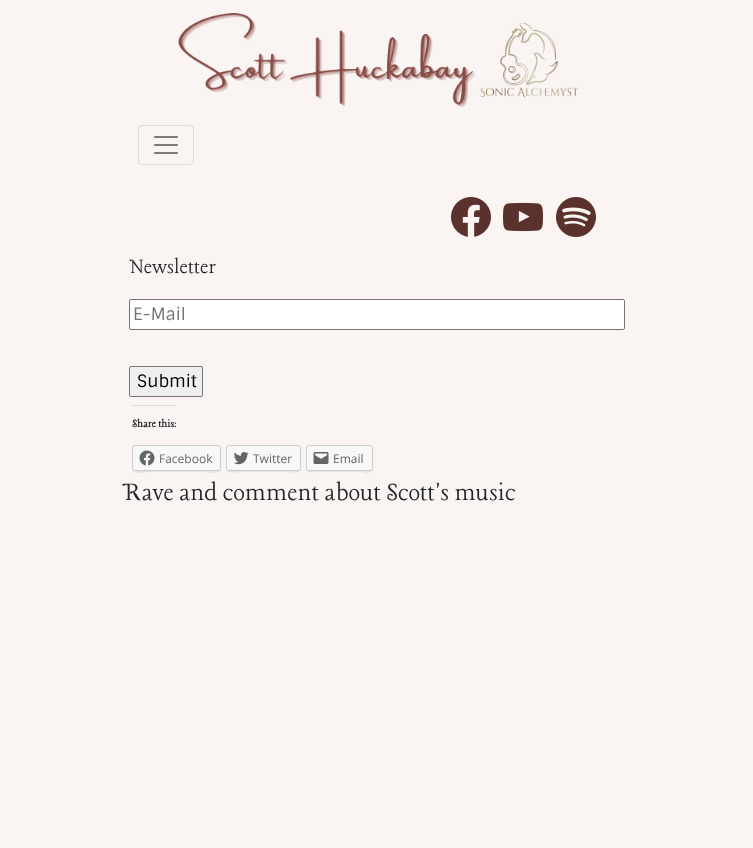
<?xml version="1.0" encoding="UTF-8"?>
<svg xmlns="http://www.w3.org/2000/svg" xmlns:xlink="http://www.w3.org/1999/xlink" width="753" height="848">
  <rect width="100%" height="100%" fill="#faf4f3" />
  <image x="178" y="13" width="400" height="94" xlink:href="image1.png" />
  <rect x="138.5" y="125.5" width="55" height="39" rx="3.5" fill="none" stroke="#e1dcdb" />
  <image x="154" y="136" width="24" height="18" xlink:href="image2.png" />
  <image x="451" y="197" width="40" height="40" xlink:href="image3.png" />
  <image x="503" y="202" width="40" height="30" xlink:href="image4.png" />
  <image x="556" y="197" width="40" height="40" xlink:href="image5.png" />
  <rect x="129.5" y="299.5" width="495" height="30" rx="1.5" fill="#ffffff" stroke="#767676" />
  <rect x="129.5" y="366.5" width="73" height="30" rx="1.5" fill="#efefef" stroke="#767676" />
  <rect x="132" y="405" width="44" height="1" fill="#dcdcde" />
  <path d="M 132 468 c 0 8 13 4 17 4 h 55 c 4 0 17 4 17 -4 c 0 2 -1 3 -3 3 h -83 c -2 0 -3 -1 -3 -3 z" fill="#e6e0e0" />
  <rect x="132.5" y="445.5" width="88" height="25" rx="2.5" fill="#f8f8f8" stroke="#cccccc" />
  <image x="139" y="450" width="16" height="16" xlink:href="image6.png" />
  <path d="M 226 468 c 0 7 10 4 14 4 h 46 c 5 0 15 3 15 -4 c 0 2 -1 3 -3 3 h -69 c -2 0 -3 -1 -3 -3 z" fill="#e6e0e0" />
  <rect x="226.5" y="445.5" width="74" height="25" rx="2.5" fill="#f8f8f8" stroke="#cccccc" />
  <image x="233" y="452" width="16" height="13" xlink:href="image7.png" />
  <path d="M 306 468 c 0 7 9 4 13 4 h 41 c 4 0 13 3 13 -4 c 0 2 -1 3 -3 3 h -61 c -2 0 -3 -1 -3 -3 z" fill="#e6e0e0" />
  <rect x="306.5" y="445.5" width="66" height="25" rx="2.5" fill="#f8f8f8" stroke="#cccccc" />
  <image x="313" y="452" width="16" height="12" xlink:href="image8.png" />
  <text x="129" y="273" style="font-family: Lancelot; font-size: 23px; fill: #212529">Newsletter</text>
  <text x="133" y="320" style="font-family: Sintony; font-size: 17px; fill: #757575">E-Mail</text>
  <text x="137" y="387" style="font-family: Sintony; font-size: 17px; fill: #000000">Submit</text>
  <text x="132" y="427" style="font-family: Lancelot; font-size: 12px; font-weight: bold; fill: #212529">Share this:</text>
  <text x="159" y="463" style="font-family: Open Sans; font-size: 12px; fill: #656565">Facebook</text>
  <text x="253" y="463" style="font-family: Open Sans; font-size: 12px; fill: #656565">Twitter</text>
  <text x="333" y="463" style="font-family: Open Sans; font-size: 12px; fill: #656565">Email</text>
  <text x="122" y="500" style="font-family: Lancelot; font-size: 28px; fill: #212529">Rave and comment about Scott's music</text>
</svg>
